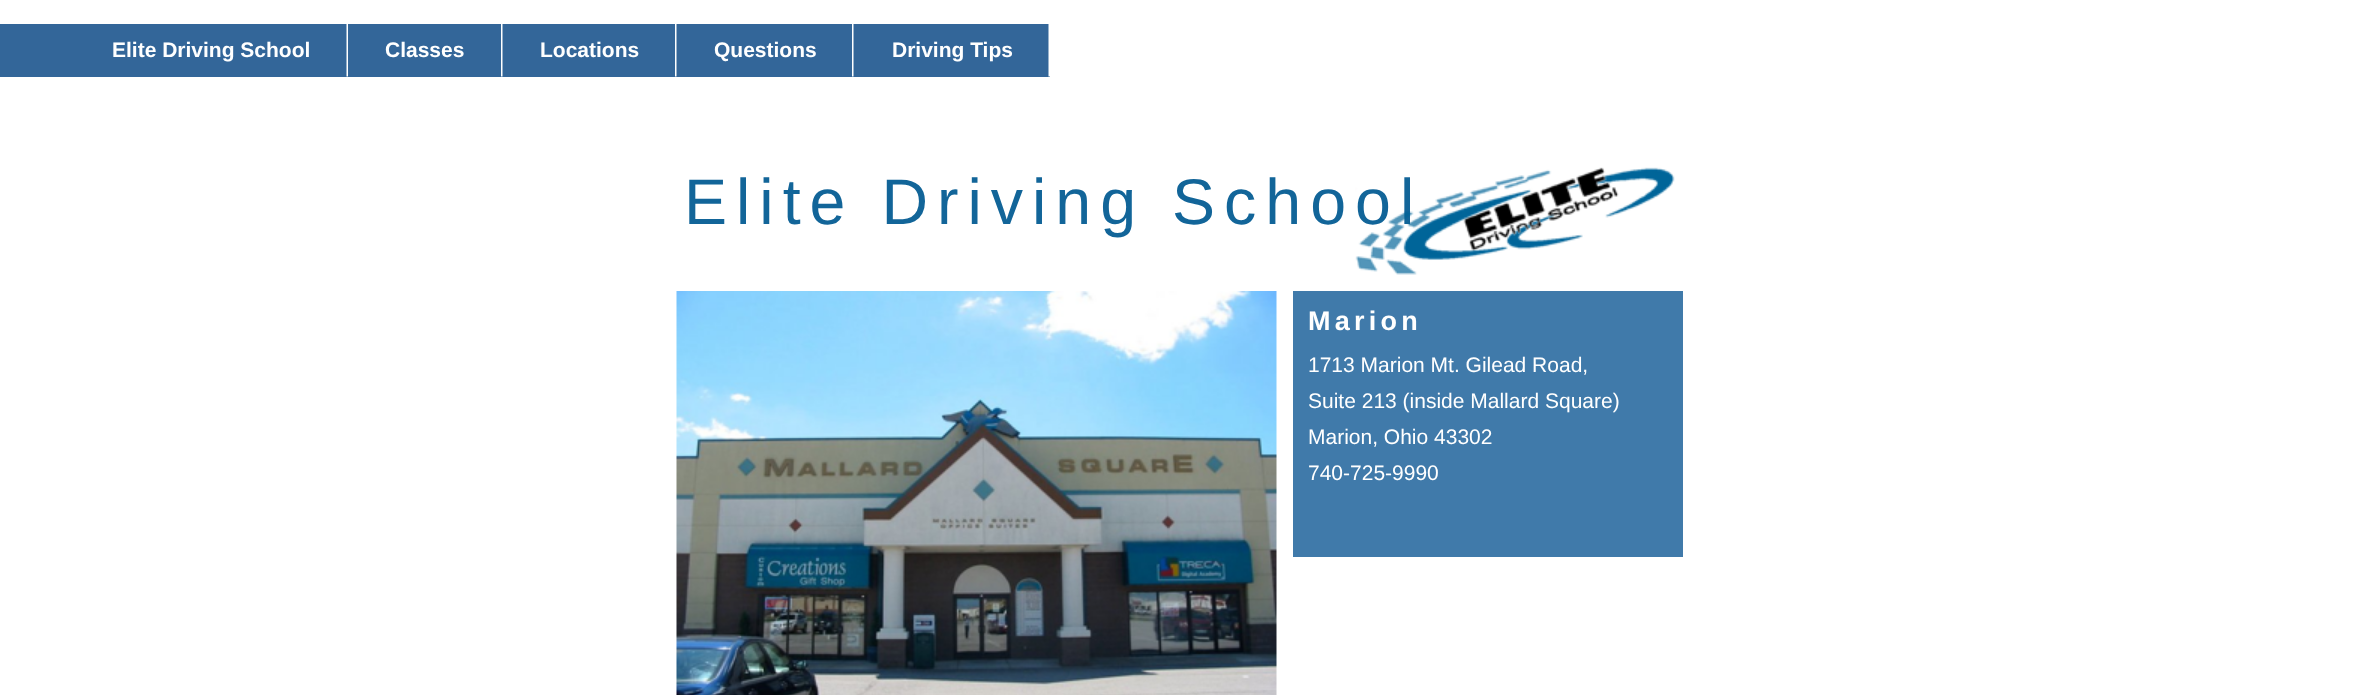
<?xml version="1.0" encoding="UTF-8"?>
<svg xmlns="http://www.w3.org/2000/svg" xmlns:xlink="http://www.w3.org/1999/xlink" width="2357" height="695">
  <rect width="100%" height="100%" fill="#ffffff" />
  <rect y="24" width="1050" height="53" fill="#336699" />
  <image x="346" y="24" width="2" height="53" xlink:href="image1.png" />
  <image x="501" y="24" width="2" height="53" xlink:href="image2.png" />
  <image x="675" y="24" width="2" height="53" xlink:href="image2.png" />
  <image x="852" y="24" width="2" height="53" xlink:href="image2.png" />
  <image x="1048" y="24" width="2" height="53" xlink:href="image1.png" />
  <image x="676" y="291" width="601" height="404" xlink:href="image4.png" />
  <rect x="1293" y="291" width="390" height="266" fill="#407aaa" />
  <text x="112" y="57" style="font-family: Liberation Sans; font-size: 21px; font-weight: bold; fill: #ffffff">Elite Driving School</text>
  <text x="385" y="57" style="font-family: Liberation Sans; font-size: 21px; font-weight: bold; fill: #ffffff">Classes</text>
  <text x="540" y="57" style="font-family: Liberation Sans; font-size: 21px; font-weight: bold; fill: #ffffff">Locations</text>
  <text x="714" y="57" style="font-family: Liberation Sans; font-size: 21px; font-weight: bold; fill: #ffffff">Questions</text>
  <text x="892" y="57" style="font-family: Liberation Sans; font-size: 21px; font-weight: bold; fill: #ffffff">Driving Tips</text>
  <text x="684" y="224" style="font-family: Liberation Sans; font-size: 64.5px; letter-spacing: 9px; fill: #126599">Elite Driving School</text>
  <image x="1355" y="167" width="320" height="108" xlink:href="image3.png" />
  <text x="1308" y="330" style="font-family: Liberation Sans; font-size: 27px; font-weight: bold; letter-spacing: 4.25px; fill: #ffffff">Marion</text>
  <text x="1308" y="372" style="font-family: Liberation Sans; font-size: 21px; fill: #ffffff">1713 Marion Mt. Gilead Road,</text>
  <text x="1308" y="408" style="font-family: Liberation Sans; font-size: 21px; fill: #ffffff">Suite 213 (inside Mallard Square)</text>
  <text x="1308" y="444" style="font-family: Liberation Sans; font-size: 21px; fill: #ffffff">Marion, Ohio 43302</text>
  <text x="1308" y="480" style="font-family: Liberation Sans; font-size: 21px; fill: #ffffff">740-725-9990</text>
</svg>
